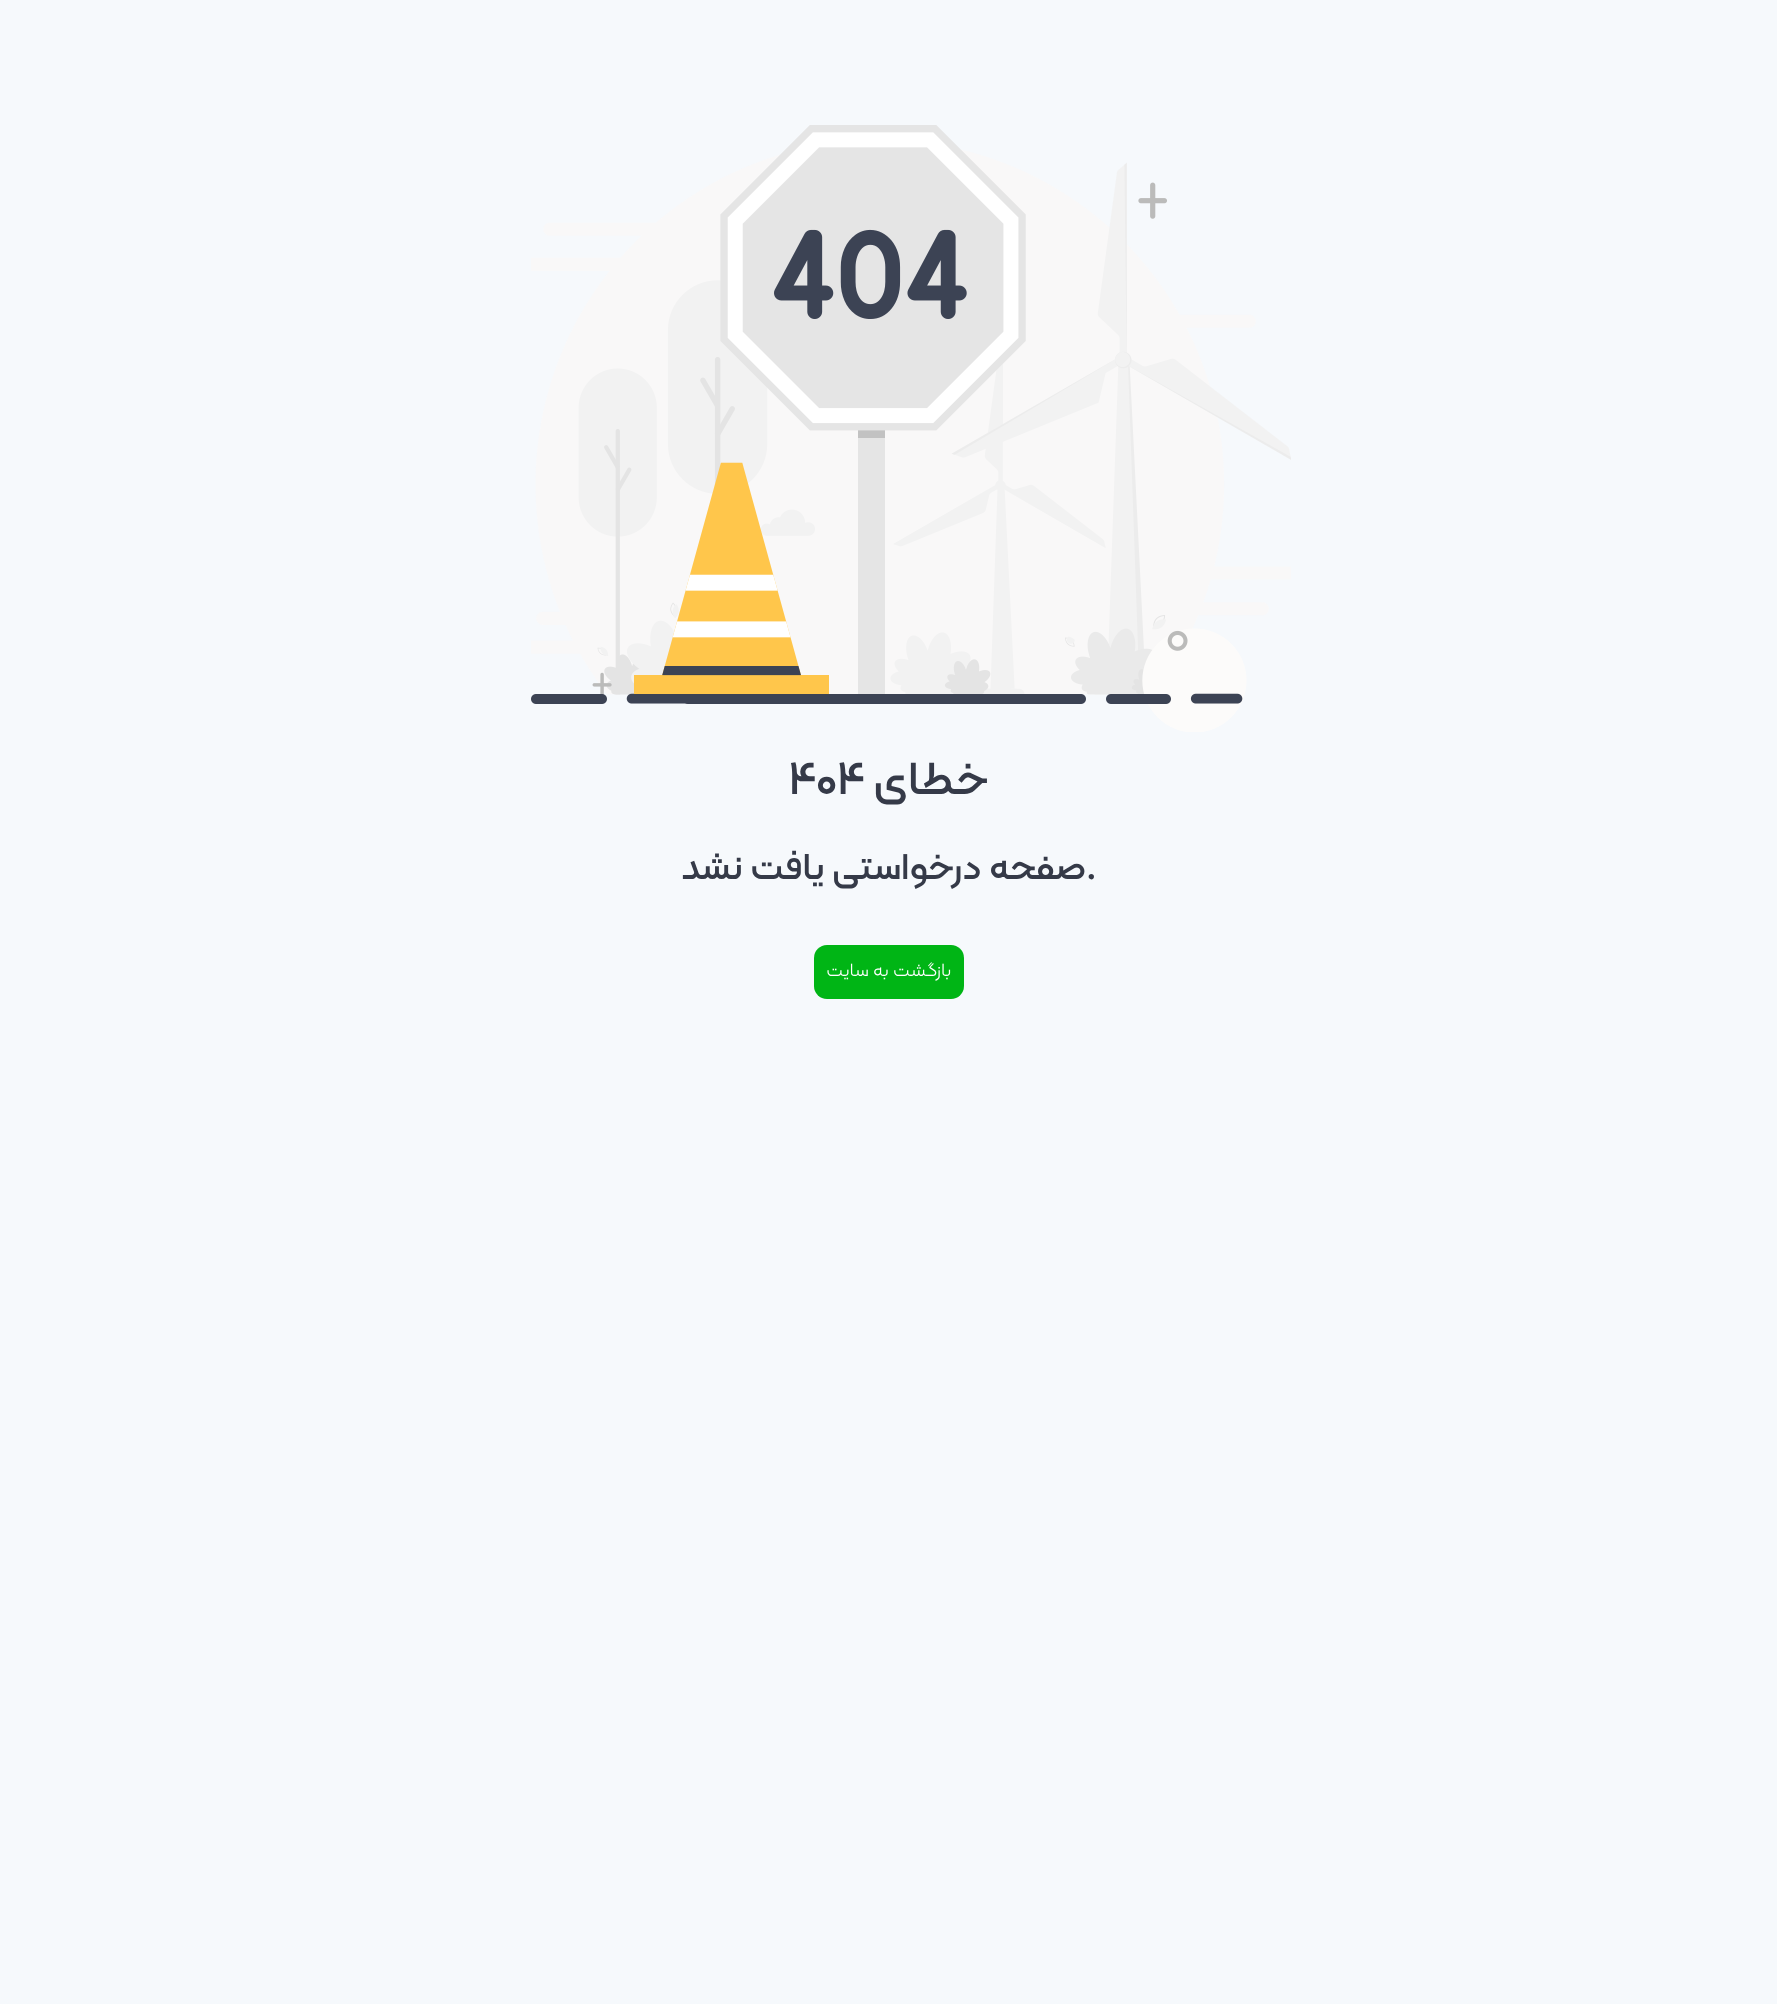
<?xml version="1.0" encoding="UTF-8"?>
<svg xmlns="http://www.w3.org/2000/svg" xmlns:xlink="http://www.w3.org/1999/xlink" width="1777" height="2004">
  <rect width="100%" height="100%" fill="#f6f9fc" />
  <image x="531" y="125" width="760" height="607" xlink:href="image1.png" />
  <rect x="814" y="945" width="150" height="54" rx="13" fill="#00b515" />
  <text x="989" y="794" style="font-family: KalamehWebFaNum; font-size: 47px; font-weight: 500; direction: rtl; fill: #353a48">خطای</text>
  <text x="789" y="794" style="font-family: KalamehWebFaNum; font-size: 47px; font-weight: 500; fill: #353a48">404</text>
  <text x="1086" y="879" style="font-family: KalamehWebFaNum; font-size: 37.5px; font-weight: 500; fill: #353a48">.</text>
  <text x="1086" y="879" style="font-family: KalamehWebFaNum; font-size: 37.5px; font-weight: 500; direction: rtl; fill: #353a48">صفحه درخواستی یافت نشد</text>
  <text x="951" y="976" style="font-family: KalamehWebFaNum; font-size: 18.75px; font-weight: 300; direction: rtl; fill: #ffffff">بازگشت به سایت</text>
</svg>
